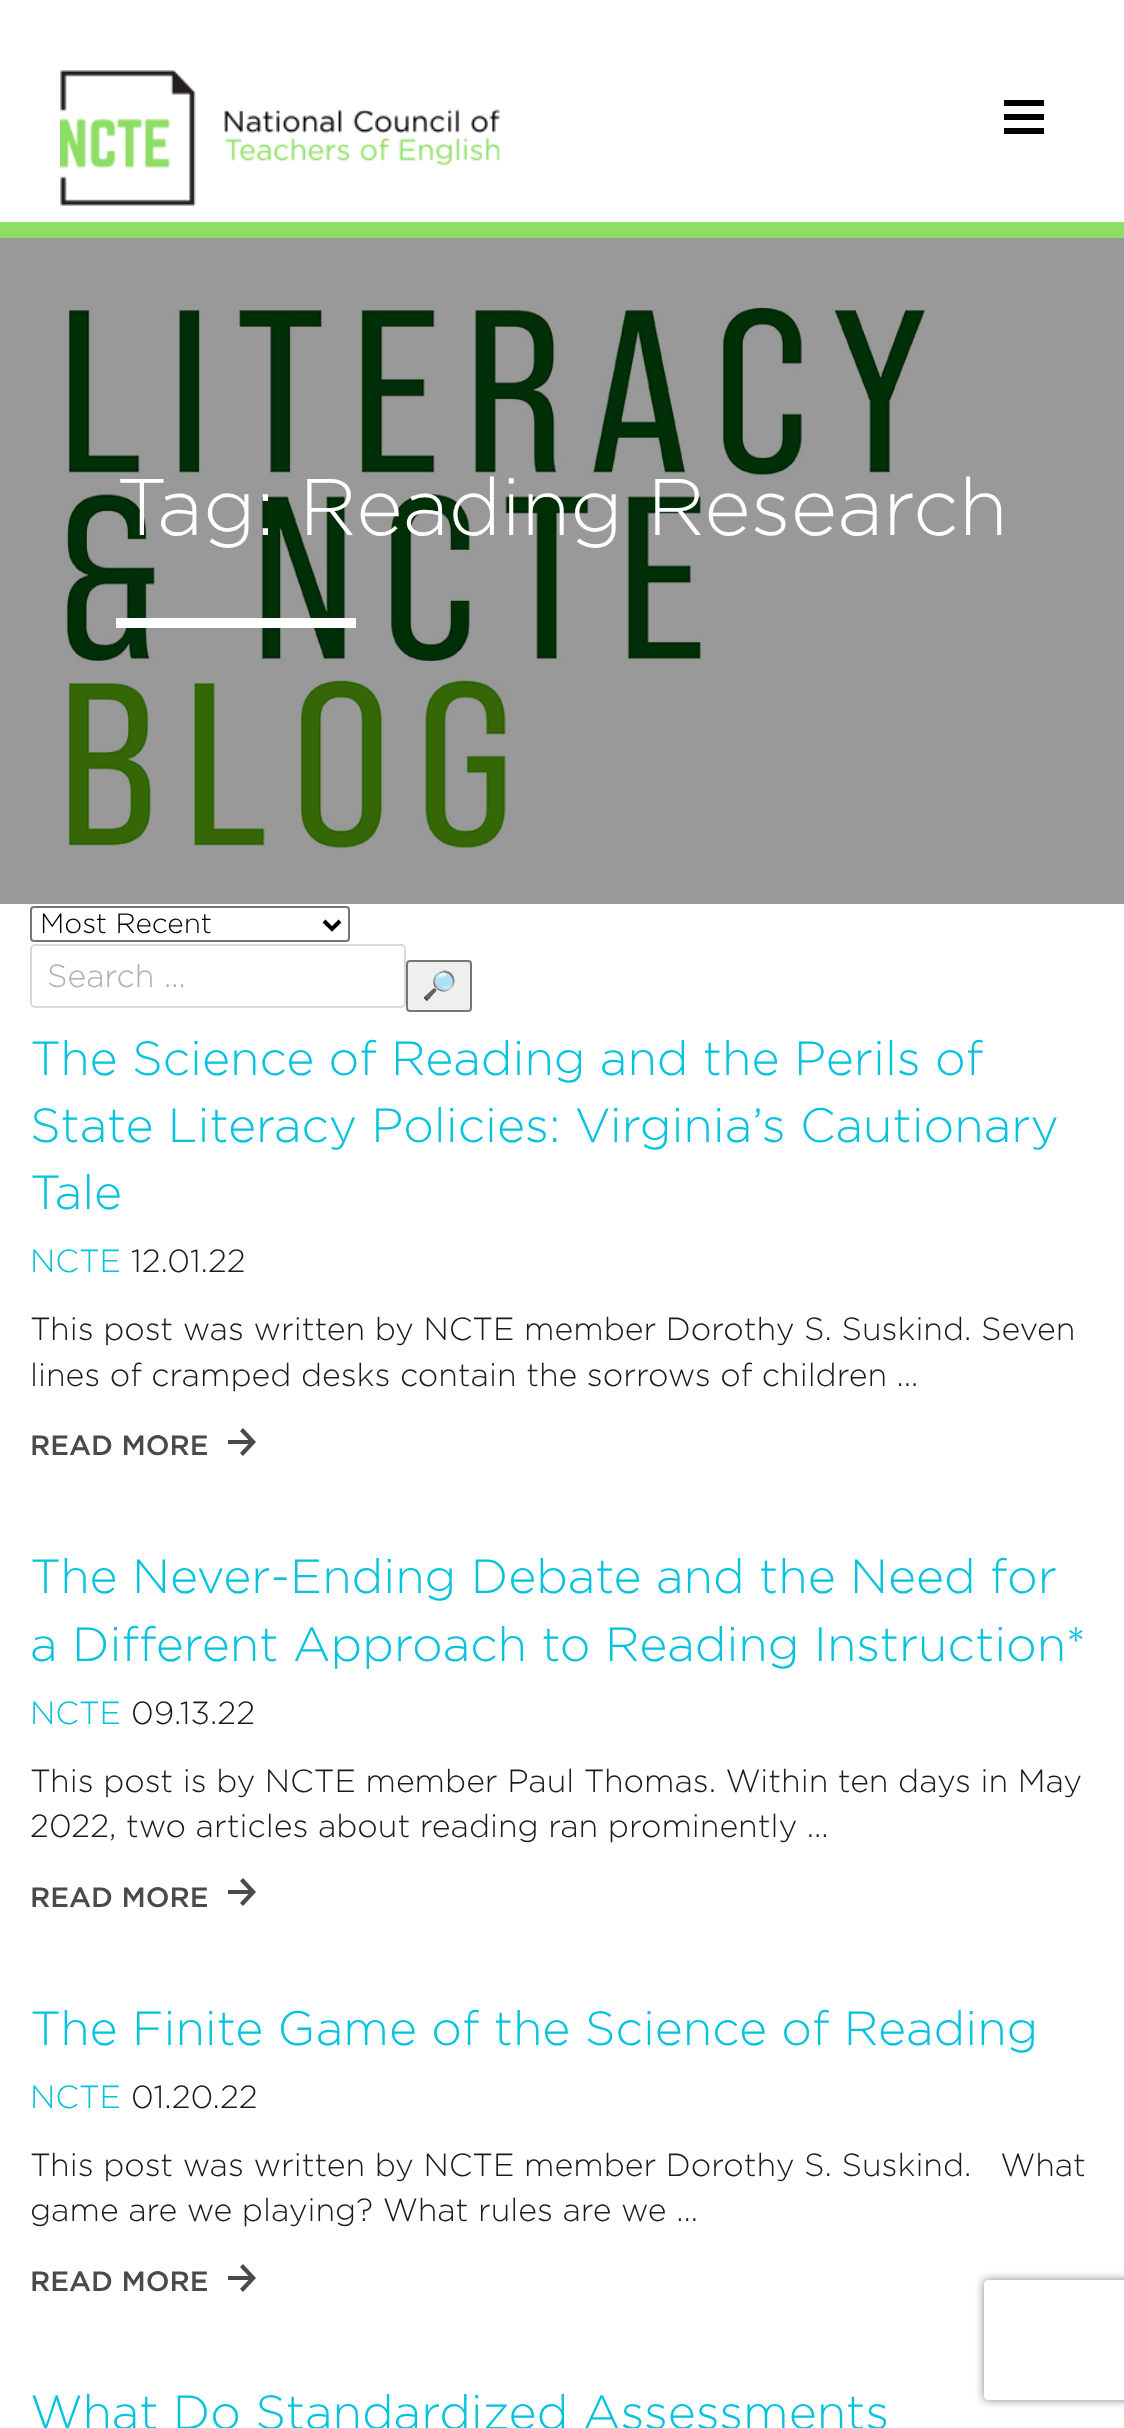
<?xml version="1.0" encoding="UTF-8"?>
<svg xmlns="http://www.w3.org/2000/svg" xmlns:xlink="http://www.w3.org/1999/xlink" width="1124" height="2428">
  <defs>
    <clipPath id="clip1"><path d="M 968 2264 h 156 v 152 h -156 z m 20 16 h 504 c 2 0 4 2 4 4 v 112 c 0 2 -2 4 -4 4 h -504 c -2 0 -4 -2 -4 -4 v -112 c 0 -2 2 -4 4 -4 z" clip-rule="evenodd" /></clipPath>
  </defs>
  <rect width="100%" height="100%" fill="#ffffff" />
  <rect y="238" width="1124" height="666" fill="#999999" />
  <rect y="222" width="1124" height="16" fill="#8edd65" />
  <image x="60" y="70" width="440" height="136" xlink:href="image1.png" />
  <rect x="1004" y="100" width="40" height="6" fill="#000000" />
  <rect x="1004" y="114" width="40" height="6" fill="#000000" />
  <rect x="1004" y="128" width="40" height="6" fill="#000000" />
  <image x="66" y="307" width="860" height="542" xlink:href="image2.png" />
  <rect x="116" y="618" width="240" height="10" fill="#ffffff" />
  <rect x="31" y="907" width="318" height="34" rx="3" fill="none" stroke="#767676" stroke-width="2" />
  <path d="M 324 921 l 8 8 l 8 -8" fill="none" stroke="#000000" stroke-width="4" />
  <rect x="31" y="945" width="374" height="62" rx="4" fill="none" stroke="#d9d9d9" stroke-width="2" />
  <rect x="407" y="961" width="64" height="50" rx="3" fill="#efefef" stroke="#767676" stroke-width="2" />
  <path d="M 243 1428 l 13 14 l -13 14 l -3 -3 l 8.5 -9 h -20.5 v -4 h 20.5 l -8.5 -9 z" fill="#4a4a4a" />
  <path d="M 243 1878 l 13 14 l -13 14 l -3 -3 l 8.5 -9 h -20.5 v -4 h 20.5 l -8.5 -9 z" fill="#4a4a4a" />
  <path d="M 243 2264 l 13 14 l -13 14 l -3 -3 l 8.5 -9 h -20.5 v -4 h 20.5 l -8.5 -9 z" fill="#4a4a4a" />
  <g clip-path="url(#clip1)">
    <rect x="984" y="2280" width="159" height="120" rx="4" fill="#808080" filter="blur(5px)" />
  </g>
  <text x="116" y="535" style="font-family: Gotham; font-size: 80px; font-weight: 300; fill: #ffffff">Tag: Reading Research</text>
  <text x="40" y="933" style="font-family: Gotham; font-size: 28px; font-weight: 300; fill: #000000">Most Recent</text>
  <text x="47" y="987" style="font-family: Gotham; font-size: 32px; font-weight: 300; fill: #afafaf">Search …</text>
  <text x="422" y="995" style="font-family: Noto Color Emoji; font-size: 28px; fill: #000000">🔎</text>
  <text x="30" y="1075" style="font-family: Gotham; font-size: 48px; font-weight: 300; fill: #05c3de">The Science of Reading and the Perils of</text>
  <text x="30" y="1142" style="font-family: Gotham; font-size: 48px; font-weight: 300; fill: #05c3de">State Literacy Policies: Virginia’s Cautionary</text>
  <text x="30" y="1209" style="font-family: Gotham; font-size: 48px; font-weight: 300; fill: #05c3de">Tale</text>
  <text x="30" y="1272" style="font-family: Gotham; font-size: 32px; font-weight: 300; fill: #05c3de">NCTE</text>
  <text x="131" y="1272" style="font-family: Gotham; font-size: 32px; font-weight: 300; fill: #1d1a1a">12.01.22</text>
  <text x="30" y="1340" style="font-family: Gotham; font-size: 32px; font-weight: 300; fill: #1d1a1a">This post was written by NCTE member Dorothy S. Suskind. Seven</text>
  <text x="30" y="1386" style="font-family: Gotham; font-size: 32px; font-weight: 300; fill: #1d1a1a">lines of cramped desks contain the sorrows of children …</text>
  <text x="30" y="1455" style="font-family: Gotham; font-size: 28px; font-weight: 500; fill: #4a4a4a">READ MORE</text>
  <text x="30" y="1593" style="font-family: Gotham; font-size: 48px; font-weight: 300; fill: #05c3de">The Never-Ending Debate and the Need for</text>
  <text x="30" y="1661" style="font-family: Gotham; font-size: 48px; font-weight: 300; fill: #05c3de">a Different Approach to Reading Instruction*</text>
  <text x="30" y="1724" style="font-family: Gotham; font-size: 32px; font-weight: 300; fill: #05c3de">NCTE</text>
  <text x="131" y="1724" style="font-family: Gotham; font-size: 32px; font-weight: 300; fill: #1d1a1a">09.13.22</text>
  <text x="30" y="1792" style="font-family: Gotham; font-size: 32px; font-weight: 300; fill: #1d1a1a">This post is by NCTE member Paul Thomas. Within ten days in May</text>
  <text x="30" y="1837" style="font-family: Gotham; font-size: 32px; font-weight: 300; fill: #1d1a1a">2022, two articles about reading ran prominently …</text>
  <text x="30" y="1907" style="font-family: Gotham; font-size: 28px; font-weight: 500; fill: #4a4a4a">READ MORE</text>
  <text x="30" y="2045" style="font-family: Gotham; font-size: 48px; font-weight: 300; fill: #05c3de">The Finite Game of the Science of Reading</text>
  <text x="30" y="2108" style="font-family: Gotham; font-size: 32px; font-weight: 300; fill: #05c3de">NCTE</text>
  <text x="131" y="2108" style="font-family: Gotham; font-size: 32px; font-weight: 300; fill: #1d1a1a">01.20.22</text>
  <text x="30" y="2176" style="font-family: Gotham; font-size: 32px; font-weight: 300; fill: #1d1a1a" xml:space="preserve">This post was written by NCTE member Dorothy S. Suskind.   What</text>
  <text x="30" y="2221" style="font-family: Gotham; font-size: 32px; font-weight: 300; fill: #1d1a1a">game are we playing? What rules are we …</text>
  <text x="30" y="2291" style="font-family: Gotham; font-size: 28px; font-weight: 500; fill: #4a4a4a">READ MORE</text>
  <text x="30" y="2429" style="font-family: Gotham; font-size: 48px; font-weight: 300; fill: #05c3de">What Do Standardized Assessments</text>
</svg>
